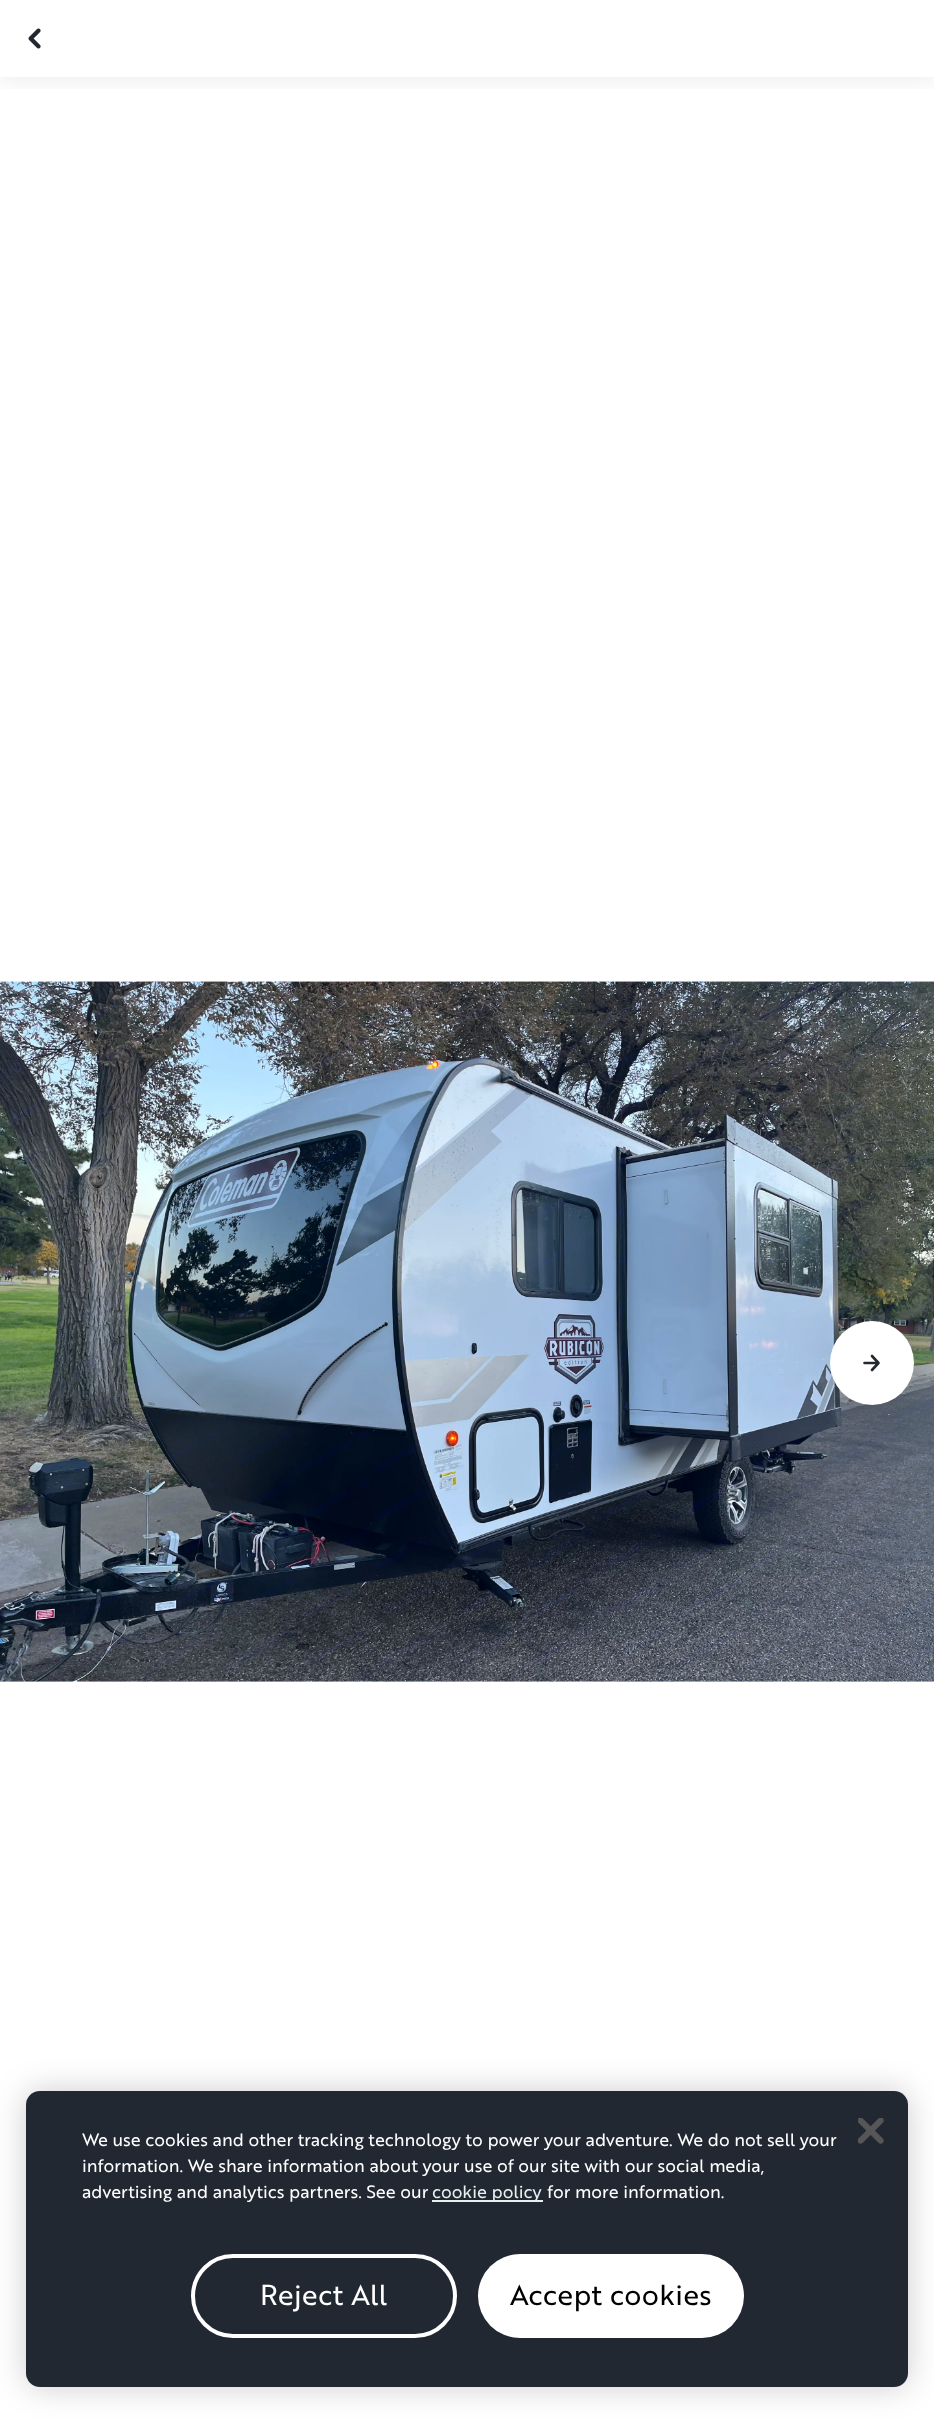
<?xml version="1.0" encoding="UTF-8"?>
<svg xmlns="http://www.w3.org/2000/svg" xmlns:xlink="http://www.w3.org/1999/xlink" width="934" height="2422">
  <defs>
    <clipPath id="clip1"><rect x="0" y="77" width="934" height="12" /></clipPath>
  </defs>
  <rect width="100%" height="100%" fill="#ffffff" />
  <g clip-path="url(#clip1)">
    <rect width="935" height="77" fill="#0f0f0f" fill-opacity="0.1" filter="blur(14px)" />
  </g>
  <image x="28" y="28" width="13" height="21" xlink:href="image1.png" />
  <image x="0" y="981" width="934" height="701" xlink:href="image2.png" />
  <rect x="830" y="1323" width="84" height="84" rx="42" fill="#000000" fill-opacity="0.1" filter="blur(17.5px)" />
  <circle cx="872" cy="1363" r="42" fill="#ffffff" />
  <path d="M 872 1356 l 6.5 7 m 0 0 l -6.5 7 m 6.5 -7 h -14" fill="none" stroke="#212831" stroke-width="2.6" stroke-linecap="round" stroke-linejoin="round" />
  <rect x="26" y="2091" width="882" height="296" rx="14" fill="#000000" fill-opacity="0.2" filter="blur(16px)" />
  <rect x="26" y="2091" width="882" height="296" rx="14" fill="#212831" />
  <rect x="432" y="2200" width="111" height="2" fill="#e6f0ef" />
  <rect x="193" y="2256" width="262" height="80" rx="40" fill="none" stroke="#ffffff" stroke-width="4" />
  <rect x="478" y="2254" width="266" height="84" rx="42" fill="#ffffff" />
  <image x="858" y="2118" width="26" height="26" xlink:href="image3.png" />
  <text x="82" y="2146" style="font-family: 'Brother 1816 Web'; font-size: 17.5px; fill: #ffffff">We use cookies and other tracking technology to power your adventure. We do not sell your</text>
  <text x="82" y="2172" style="font-family: 'Brother 1816 Web'; font-size: 17.5px; fill: #ffffff">information. We share information about your use of our site with our social media,</text>
  <text x="82" y="2198" style="font-family: 'Brother 1816 Web'; font-size: 17.5px; fill: #ffffff">advertising and analytics partners. See our</text>
  <text x="432" y="2198" style="font-family: 'Brother 1816 Web'; font-size: 17.5px; fill: #e6f0ef">cookie policy</text>
  <text x="547" y="2198" style="font-family: 'Brother 1816 Web'; font-size: 17.5px; fill: #ffffff">for more information.</text>
  <text x="260" y="2305" style="font-family: 'Brother 1816 Web'; font-size: 28px; letter-spacing: 0.25px; fill: #ffffff">Reject All</text>
  <text x="510" y="2305" style="font-family: 'Brother 1816 Web'; font-size: 28px; letter-spacing: 0.25px; fill: #000000">Accept cookies</text>
</svg>
